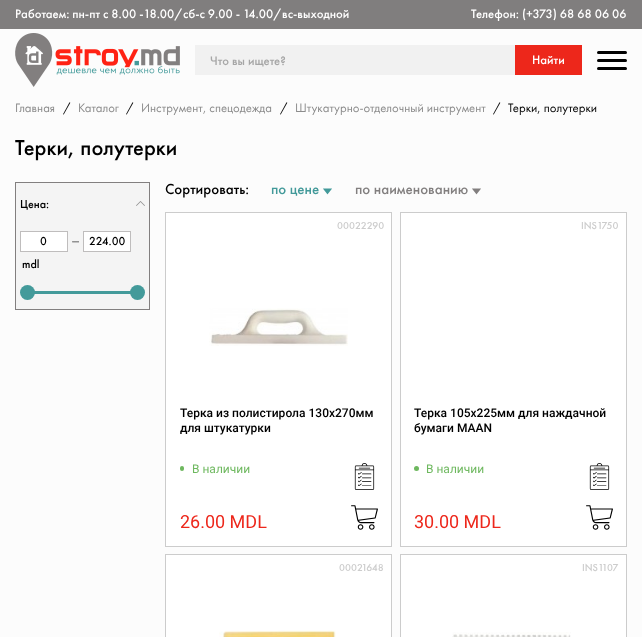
<?xml version="1.0" encoding="UTF-8"?>
<svg xmlns="http://www.w3.org/2000/svg" xmlns:xlink="http://www.w3.org/1999/xlink" width="642" height="637">
  <defs>
    <clipPath id="clip1"><rect x="180" y="405" width="198" height="45" /></clipPath>
  </defs>
  <rect width="100%" height="100%" fill="#fcfcfc" />
  <rect width="642" height="29" fill="#807e7e" />
  <image x="15" y="33" width="165" height="54" xlink:href="image1.png" />
  <rect x="195" y="45" width="320" height="30" fill="#f1f1f1" />
  <rect x="515" y="45" width="67" height="30" fill="#ed271b" />
  <rect x="597" y="51" width="30" height="3" rx="1.5" fill="#000000" />
  <rect x="597" y="59" width="30" height="3" rx="1.5" fill="#000000" />
  <rect x="597" y="67" width="30" height="3" rx="1.5" fill="#000000" />
  <rect x="15.5" y="182.5" width="134" height="127" fill="#f4f4f4" stroke="#827f7f" />
  <image x="136" y="201" width="9" height="5" xlink:href="image2.png" />
  <rect x="20.5" y="231.5" width="47" height="20" fill="#ffffff" stroke="#bfbdbd" />
  <image x="72" y="241" width="7" height="2" xlink:href="image3.png" />
  <rect x="83.5" y="231.5" width="47" height="20" fill="#ffffff" stroke="#bfbdbd" />
  <rect x="27" y="291" width="111" height="3" fill="#439a9a" />
  <circle cx="27.5" cy="292.5" r="7.5" fill="#439a9a" />
  <circle cx="137.5" cy="292.5" r="7.5" fill="#439a9a" />
  <image x="323" y="188" width="9" height="7" xlink:href="image4.png" />
  <image x="472" y="188" width="9" height="7" xlink:href="image5.png" />
  <rect x="165.5" y="212.5" width="226" height="334" fill="#ffffff" stroke="#cccccc" />
  <image x="209" y="308" width="139" height="38" xlink:href="image6.png" />
  <rect x="180" y="466" width="4" height="5" rx="2" fill="#6eb85f" />
  <image x="354" y="463" width="21" height="27" xlink:href="image7.png" />
  <image x="351" y="505" width="27" height="25" xlink:href="image8.png" />
  <rect x="400.5" y="212.5" width="226" height="334" fill="#ffffff" stroke="#cccccc" />
  <circle cx="416.5" cy="468.5" r="2.5" fill="#6eb85f" />
  <image x="589" y="463" width="21" height="27" xlink:href="image7.png" />
  <image x="586" y="505" width="27" height="25" xlink:href="image8.png" />
  <rect x="165.5" y="554.5" width="226" height="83" fill="#ffffff" stroke="#cccccc" />
  <image x="219" y="630" width="117" height="7" xlink:href="image9.png" />
  <rect x="400.5" y="554.5" width="226" height="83" fill="#ffffff" stroke="#cccccc" />
  <image x="452" y="632" width="119" height="5" xlink:href="image10.png" />
  <text x="15" y="18" style="font-family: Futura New; font-size: 12.75px; font-weight: 500; fill: #ffffff">Работаем: пн-пт с 8.00 -18.00/сб-с 9.00 - 14.00/вс-выходной</text>
  <text x="471" y="18" style="font-family: Futura New; font-size: 12.75px; font-weight: 500; fill: #ffffff">Телефон: (+373) 68 68 06 06</text>
  <text x="210" y="65" style="font-family: Futura New; font-size: 12.75px; font-weight: 500; fill: #a6a6a6">Что вы ищете?</text>
  <text x="532" y="64" style="font-family: Futura New; font-size: 12.75px; font-weight: 500; fill: #ffffff">Найти</text>
  <text x="15" y="112" style="font-family: Futura New; font-size: 12.75px; fill: #8c8c8c">Главная</text>
  <text x="63" y="112" style="font-family: Futura New; font-size: 12.75px; fill: #000000">/</text>
  <text x="78" y="112" style="font-family: Futura New; font-size: 12.75px; fill: #8c8c8c">Каталог</text>
  <text x="126" y="112" style="font-family: Futura New; font-size: 12.75px; fill: #000000">/</text>
  <text x="141" y="112" style="font-family: Futura New; font-size: 12.75px; fill: #8c8c8c">Инструмент, спецодежда</text>
  <text x="280" y="112" style="font-family: Futura New; font-size: 12.75px; fill: #000000">/</text>
  <text x="295" y="112" style="font-family: Futura New; font-size: 12.75px; fill: #8c8c8c">Штукатурно-отделочный инструмент</text>
  <text x="493" y="112" style="font-family: Futura New; font-size: 12.75px; fill: #000000">/</text>
  <text x="508" y="112" style="font-family: Futura New; font-size: 12.75px; fill: #000000">Терки, полутерки</text>
  <text x="15" y="155" style="font-family: Futura New; font-size: 22.5px; font-weight: 500; fill: #000000">Терки, полутерки</text>
  <text x="20" y="208" style="font-family: Futura New; font-size: 12px; font-weight: 500; fill: #000000">Цена:</text>
  <text x="40" y="245" style="font-family: Futura New; font-size: 12px; font-weight: 500; fill: #000000">0</text>
  <text x="89" y="245" style="font-family: Futura New; font-size: 12px; font-weight: 500; fill: #000000">224.00</text>
  <text x="22" y="268" style="font-family: Futura New; font-size: 12px; font-weight: 500; fill: #000000">mdl</text>
  <text x="165" y="194" style="font-family: Futura New; font-size: 15px; font-weight: 500; fill: #000000">Сортировать:</text>
  <text x="271" y="194" style="font-family: Futura New; font-size: 15px; font-weight: 500; fill: #439a9a">по цене</text>
  <text x="355" y="194" style="font-family: Futura New; font-size: 15px; font-weight: 500; fill: #827f7f">по наименованию</text>
  <text x="337" y="229" style="font-family: Futura New; font-size: 10.5px; font-weight: 500; fill: #cccccc">00022290</text>
  <text x="180" y="417" style="font-family: Roboto; font-size: 12px; font-weight: 500; fill: #000000">Терка из полистирола 130x270мм</text>
  <g clip-path="url(#clip1)">
    <text x="180" y="432" style="font-family: Roboto; font-size: 12px; font-weight: 500; fill: #000000">для штукатурки</text>
  </g>
  <text x="192" y="473" style="font-family: Roboto; font-size: 12px; fill: #6eb85f">В наличии</text>
  <text x="180" y="528" style="font-family: Roboto; font-size: 18px; fill: #ed271b">26.00 MDL</text>
  <text x="581" y="229" style="font-family: Futura New; font-size: 10.5px; font-weight: 500; fill: #cccccc">INS1750</text>
  <text x="414" y="417" style="font-family: Roboto; font-size: 12px; font-weight: 500; fill: #000000">Терка 105x225мм для наждачной</text>
  <text x="414" y="432" style="font-family: Roboto; font-size: 12px; font-weight: 500; fill: #000000">бумаги MAAN</text>
  <text x="426" y="473" style="font-family: Roboto; font-size: 12px; fill: #6eb85f">В наличии</text>
  <text x="414" y="528" style="font-family: Roboto; font-size: 18px; fill: #ed271b">30.00 MDL</text>
  <text x="339" y="571" style="font-family: Futura New; font-size: 10.5px; font-weight: 500; fill: #cccccc">00021648</text>
  <text x="582" y="571" style="font-family: Futura New; font-size: 10.5px; font-weight: 500; fill: #cccccc">INS1107</text>
</svg>
